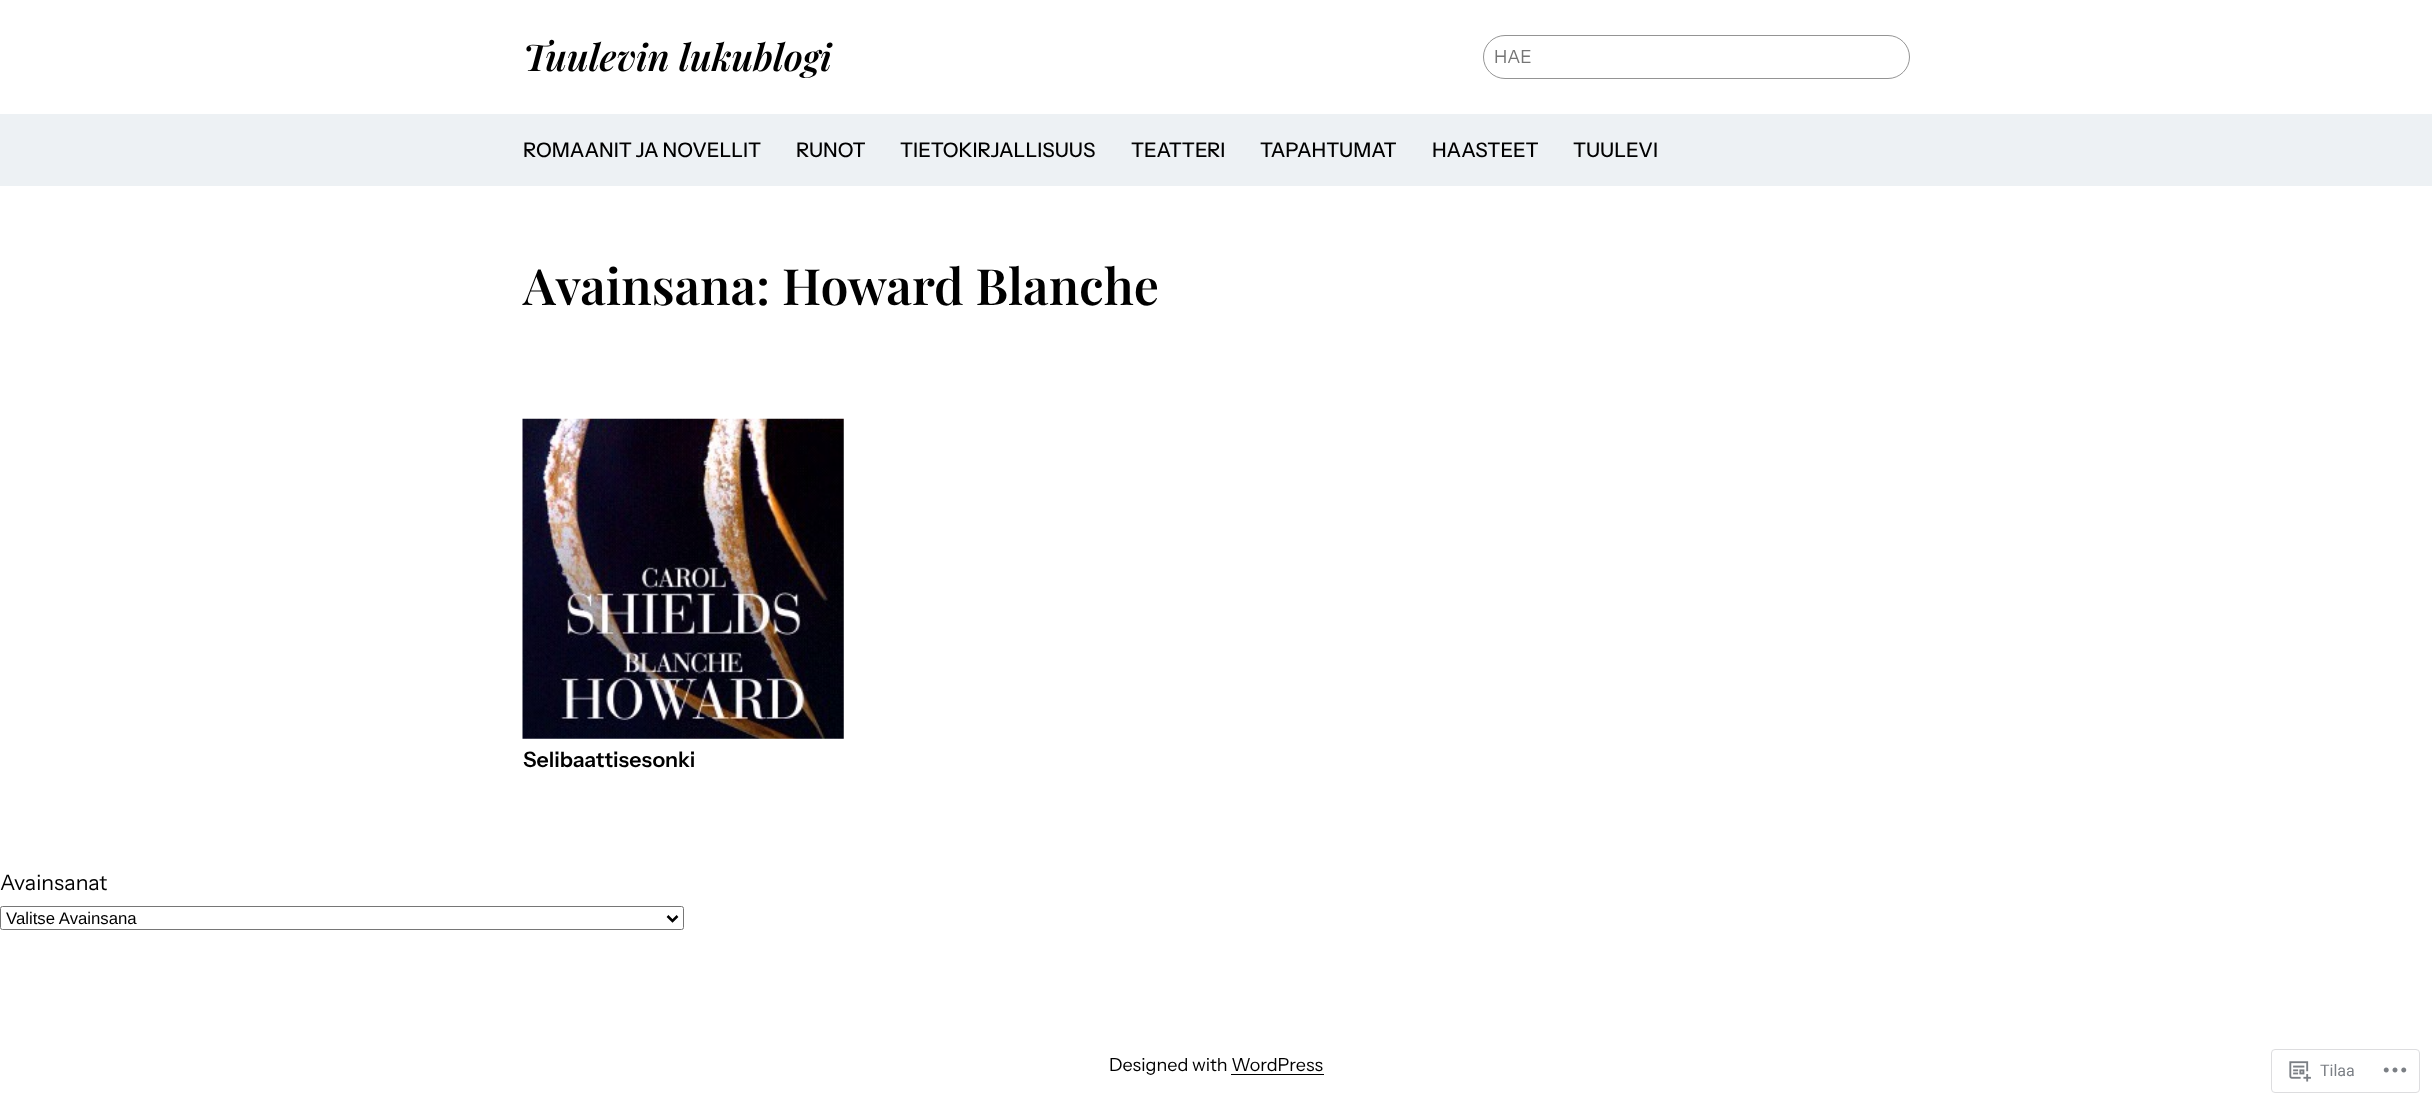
<?xml version="1.0" encoding="UTF-8"?>
<svg xmlns="http://www.w3.org/2000/svg" xmlns:xlink="http://www.w3.org/1999/xlink" width="2432" height="1104">
  <rect width="100%" height="100%" fill="#ffffff" />
  <rect x="1483.5" y="35.5" width="426" height="43" rx="21.5" fill="none" stroke="#949494" />
  <rect y="114" width="2432" height="72" fill="#edf1f4" />
  <image x="522" y="418" width="322" height="321" xlink:href="image1.png" />
  <rect x="0.5" y="906.5" width="683" height="23" rx="2" fill="none" stroke="#767676" />
  <path d="M 667.5 916 l 5 5 l 5 -5" fill="none" stroke="#000000" stroke-width="2.5" />
  <rect x="1231" y="1074" width="93" height="1" fill="#000000" />
  <rect x="2271.5" y="1049.5" width="148" height="43" rx="3.5" fill="none" stroke="#dddddf" />
  <image x="2289" y="1061" width="22" height="21" xlink:href="image2.png" />
  <image x="2383" y="1067" width="24" height="6" xlink:href="image3.png" />
  <text x="523" y="71" style="font-family: Playfair Display; font-size: 37px; font-weight: 600; font-style: italic; fill: #000000">Tuulevin lukublogi</text>
  <text x="1494" y="63" style="font-family: Instrument Sans; font-size: 18px; fill: #757575">HAE</text>
  <text x="523" y="157" style="font-family: Instrument Sans; font-size: 20px; font-weight: 500; fill: #000000">ROMAANIT JA NOVELLIT</text>
  <text x="796" y="157" style="font-family: Instrument Sans; font-size: 20px; font-weight: 500; fill: #000000">RUNOT</text>
  <text x="900" y="157" style="font-family: Instrument Sans; font-size: 20px; font-weight: 500; fill: #000000">TIETOKIRJALLISUUS</text>
  <text x="1131" y="157" style="font-family: Instrument Sans; font-size: 20px; font-weight: 500; fill: #000000">TEATTERI</text>
  <text x="1260" y="157" style="font-family: Instrument Sans; font-size: 20px; font-weight: 500; fill: #000000">TAPAHTUMAT</text>
  <text x="1432" y="157" style="font-family: Instrument Sans; font-size: 20px; font-weight: 500; fill: #000000">HAASTEET</text>
  <text x="1573" y="157" style="font-family: Instrument Sans; font-size: 20px; font-weight: 500; fill: #000000">TUULEVI</text>
  <text x="523" y="305" style="font-family: Playfair Display; font-size: 50px; font-weight: 600; fill: #000000">Avainsana: Howard Blanche</text>
  <text x="523" y="767" style="font-family: Instrument Sans; font-size: 21.25px; font-weight: 600; fill: #000000">Selibaattisesonki</text>
  <text x="0" y="890" style="font-family: Instrument Sans; font-size: 21.25px; fill: #000000">Avainsanat</text>
  <text x="6" y="924" style="font-family: Liberation Sans; font-size: 16.75px; fill: #000000">Valitse Avainsana</text>
  <text x="1109" y="1071" style="font-family: Instrument Sans; font-size: 18px; fill: #000000">Designed with WordPress</text>
  <text x="2320" y="1076" style="font-family: Roboto; font-size: 16px; fill: #7b7f85">Tilaa</text>
</svg>
